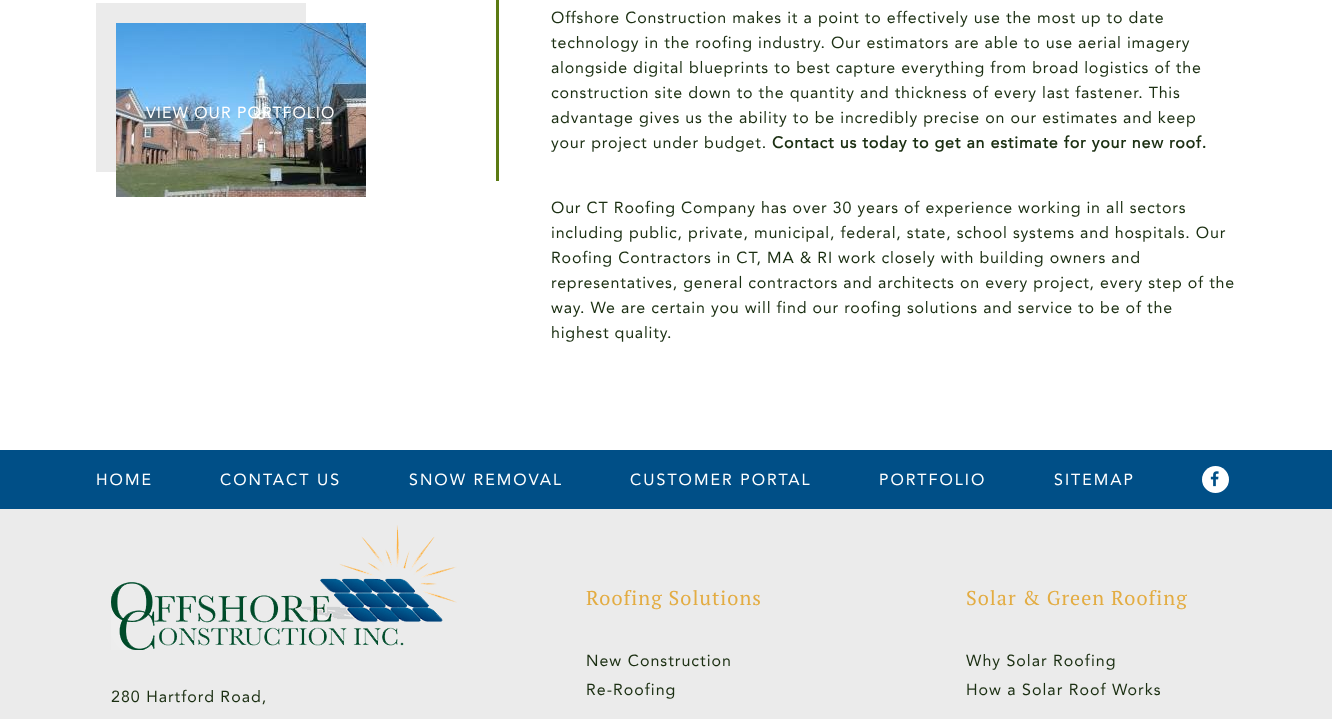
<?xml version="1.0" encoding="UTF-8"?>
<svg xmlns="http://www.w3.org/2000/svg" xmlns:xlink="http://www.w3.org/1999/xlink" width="1332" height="719">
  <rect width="100%" height="100%" fill="#ffffff" />
  <rect x="96" y="3" width="210" height="169" fill="#ebebeb" />
  <image x="116" y="23" width="250" height="174" xlink:href="image1.png" />
  <rect x="496" width="3" height="181" fill="#5b7a13" />
  <rect y="450" width="1332" height="59" fill="#004f87" />
  <circle cx="1215.5" cy="479.5" r="13.5" fill="#ffffff" />
  <image x="1210" y="471" width="9" height="16" xlink:href="image2.png" />
  <rect y="509" width="1332" height="210" fill="#ebebeb" />
  <image x="111" y="525" width="346" height="125" xlink:href="image3.png" />
  <text x="146" y="118" style="font-family: Avenir; font-size: 16px; letter-spacing: 1px; fill: #ffffff">VIEW OUR PORTFOLIO</text>
  <text x="551" y="23" style="font-family: Avenir; font-size: 16px; letter-spacing: 0.8px; fill: #1b2f12">Offshore Construction makes it a point to effectively use the most up to date</text>
  <text x="551" y="48" style="font-family: Avenir; font-size: 16px; letter-spacing: 0.8px; fill: #1b2f12">technology in the roofing industry. Our estimators are able to use aerial imagery</text>
  <text x="551" y="73" style="font-family: Avenir; font-size: 16px; letter-spacing: 0.8px; fill: #1b2f12">alongside digital blueprints to best capture everything from broad logistics of the</text>
  <text x="551" y="98" style="font-family: Avenir; font-size: 16px; letter-spacing: 0.8px; fill: #1b2f12">construction site down to the quantity and thickness of every last fastener. This</text>
  <text x="551" y="123" style="font-family: Avenir; font-size: 16px; letter-spacing: 0.8px; fill: #1b2f12">advantage gives us the ability to be incredibly precise on our estimates and keep</text>
  <text x="551" y="148" style="font-family: Avenir; font-size: 16px; letter-spacing: 0.8px; fill: #1b2f12">your project under budget.</text>
  <text x="772" y="148" style="font-family: Avenir; font-size: 16px; font-weight: bold; letter-spacing: 0.8px; fill: #1b2f12">Contact us today to get an estimate for your new roof.</text>
  <text x="551" y="213" style="font-family: Avenir; font-size: 16px; letter-spacing: 0.8px; fill: #1b2f12">Our CT Roofing Company has over 30 years of experience working in all sectors</text>
  <text x="551" y="238" style="font-family: Avenir; font-size: 16px; letter-spacing: 0.8px; fill: #1b2f12">including public, private, municipal, federal, state, school systems and hospitals. Our</text>
  <text x="551" y="263" style="font-family: Avenir; font-size: 16px; letter-spacing: 0.8px; fill: #1b2f12">Roofing Contractors in CT, MA &amp; RI work closely with building owners and</text>
  <text x="551" y="288" style="font-family: Avenir; font-size: 16px; letter-spacing: 0.8px; fill: #1b2f12">representatives, general contractors and architects on every project, every step of the</text>
  <text x="551" y="313" style="font-family: Avenir; font-size: 16px; letter-spacing: 0.8px; fill: #1b2f12">way. We are certain you will find our roofing solutions and service to be of the</text>
  <text x="551" y="338" style="font-family: Avenir; font-size: 16px; letter-spacing: 0.8px; fill: #1b2f12">highest quality.</text>
  <text x="96" y="485" style="font-family: Avenir; font-size: 16px; letter-spacing: 2px; fill: #ffffff">HOME</text>
  <text x="220" y="485" style="font-family: Avenir; font-size: 16px; letter-spacing: 2px; fill: #ffffff">CONTACT US</text>
  <text x="409" y="485" style="font-family: Avenir; font-size: 16px; letter-spacing: 2px; fill: #ffffff">SNOW REMOVAL</text>
  <text x="630" y="485" style="font-family: Avenir; font-size: 16px; letter-spacing: 2px; fill: #ffffff">CUSTOMER PORTAL</text>
  <text x="879" y="485" style="font-family: Avenir; font-size: 16px; letter-spacing: 2px; fill: #ffffff">PORTFOLIO</text>
  <text x="1054" y="485" style="font-family: Avenir; font-size: 16px; letter-spacing: 2px; fill: #ffffff">SITEMAP</text>
  <text x="111" y="702" style="font-family: Avenir; font-size: 16px; letter-spacing: 1px; fill: #1b2f12">280 Hartford Road,</text>
  <text x="586" y="605" style="font-family: PT Serif; font-size: 20px; letter-spacing: 1px; fill: #e3ac42">Roofing Solutions</text>
  <text x="586" y="666" style="font-family: Avenir; font-size: 16px; letter-spacing: 1px; fill: #1b2f12">New Construction</text>
  <text x="586" y="695" style="font-family: Avenir; font-size: 16px; letter-spacing: 1px; fill: #1b2f12">Re-Roofing</text>
  <text x="966" y="605" style="font-family: PT Serif; font-size: 20px; letter-spacing: 1px; fill: #e3ac42">Solar &amp; Green Roofing</text>
  <text x="966" y="666" style="font-family: Avenir; font-size: 16px; letter-spacing: 1px; fill: #1b2f12">Why Solar Roofing</text>
  <text x="966" y="695" style="font-family: Avenir; font-size: 16px; letter-spacing: 1px; fill: #1b2f12">How a Solar Roof Works</text>
</svg>
